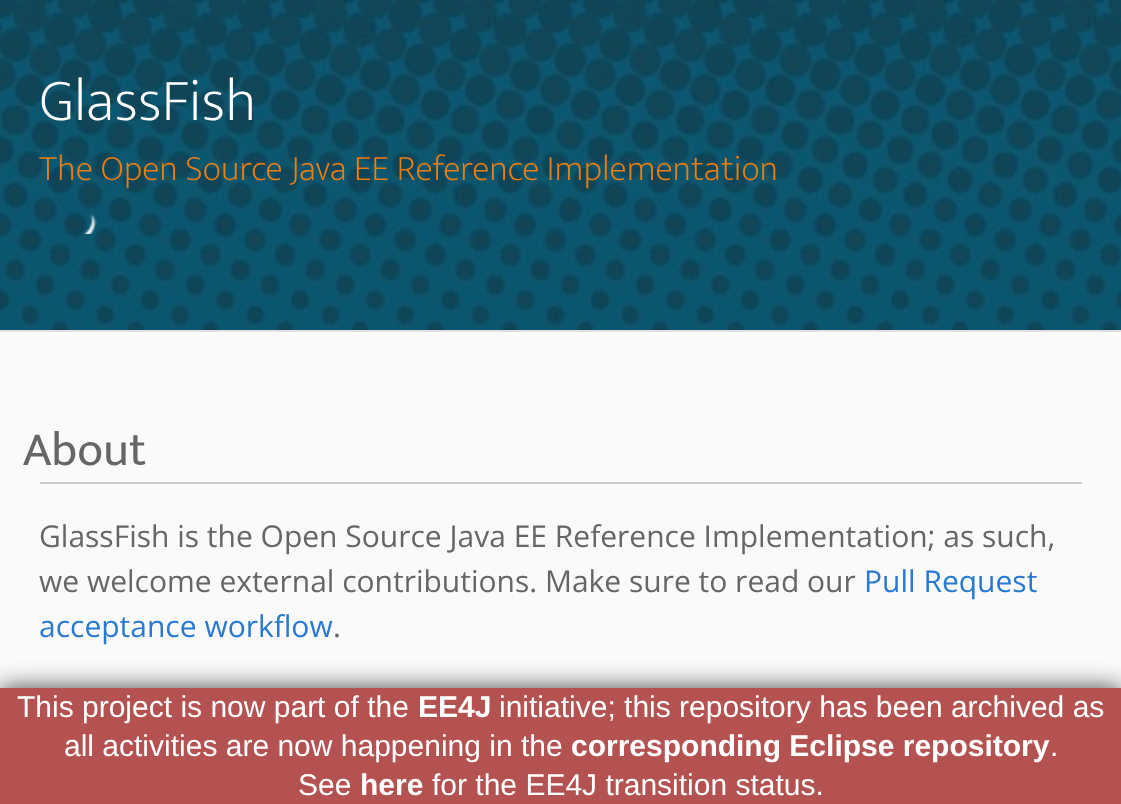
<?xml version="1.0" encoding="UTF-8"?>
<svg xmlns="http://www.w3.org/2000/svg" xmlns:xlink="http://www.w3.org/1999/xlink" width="1121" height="804">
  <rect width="100%" height="100%" fill="#fafafa" />
  <image x="0" y="0" width="1121" height="330" xlink:href="image1.png" />
  <rect y="330" width="1121" height="2" fill="#e0e0e0" />
  <image x="82" y="214" width="15" height="20" xlink:href="image2.png" />
  <rect y="332" width="1121" height="2" fill="#ffffff" />
  <rect x="40" y="482" width="1042" height="2" fill="#cccccc" />
  <rect y="688" width="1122" height="116" fill="#424242" filter="blur(12px)" />
  <rect y="688" width="1121" height="116" fill="#b45252" />
  <text x="39" y="120" style="font-family: Mukta Vaani; font-size: 60px; font-weight: 200; fill: #ffffff">GlassFish</text>
  <text x="39" y="180" style="font-family: Mukta Vaani; font-size: 36px; font-weight: 200; fill: #ec7d11">The Open Source Java EE Reference Implementation</text>
  <text x="23" y="465" style="font-family: Mukta Vaani; font-size: 48px; fill: #666666">About</text>
  <text x="39" y="547" style="font-family: Open Sans; font-size: 30px; fill: #666666">GlassFish is the Open Source Java EE Reference Implementation; as such,</text>
  <text x="39" y="592" style="font-family: Open Sans; font-size: 30px; fill: #666666">we welcome external contributions. Make sure to read our</text>
  <text x="864" y="592" style="font-family: Open Sans; font-size: 30px; fill: #2879d0">Pull Request</text>
  <text x="39" y="637" style="font-family: Open Sans; font-size: 30px; fill: #2879d0">acceptance workflow</text>
  <text x="333" y="637" style="font-family: Open Sans; font-size: 30px; fill: #666666">.</text>
  <text x="17" y="717" style="font-family: Liberation Sans; font-size: 30px; fill: #ffffff">This project is now part of the</text>
  <text x="418" y="717" style="font-family: Liberation Sans; font-size: 30px; font-weight: bold; fill: #ffffff">EE4J</text>
  <text x="499" y="717" style="font-family: Liberation Sans; font-size: 30px; fill: #ffffff">initiative; this repository has been archived as</text>
  <text x="64" y="756" style="font-family: Liberation Sans; font-size: 30px; fill: #ffffff">all activities are now happening in the</text>
  <text x="571" y="756" style="font-family: Liberation Sans; font-size: 30px; font-weight: bold; fill: #ffffff">corresponding Eclipse repository</text>
  <text x="1050" y="756" style="font-family: Liberation Sans; font-size: 30px; fill: #ffffff">.</text>
  <text x="298" y="795" style="font-family: Liberation Sans; font-size: 30px; fill: #ffffff">See</text>
  <text x="360" y="795" style="font-family: Liberation Sans; font-size: 30px; font-weight: bold; fill: #ffffff">here</text>
  <text x="432" y="795" style="font-family: Liberation Sans; font-size: 30px; fill: #ffffff">for the EE4J transition status.</text>
</svg>
